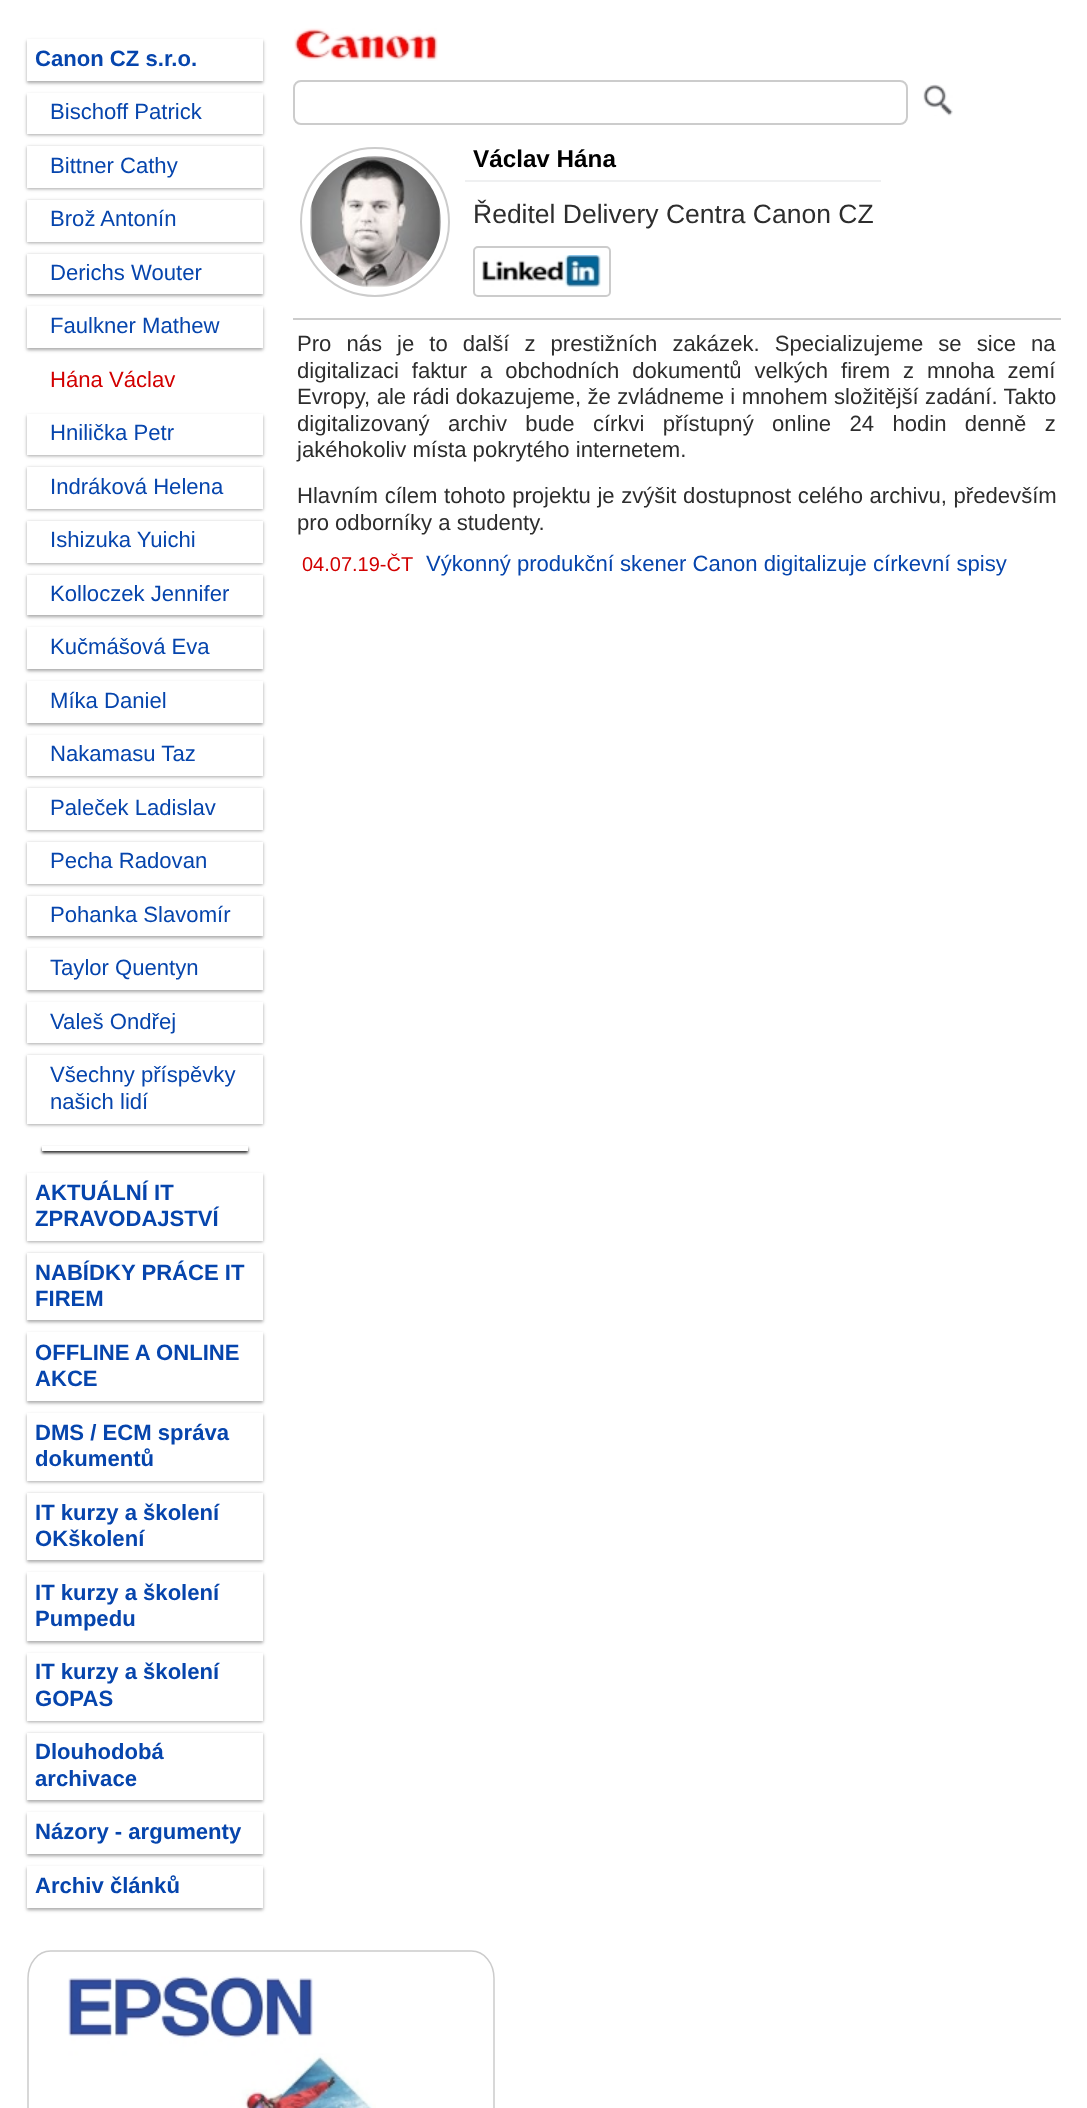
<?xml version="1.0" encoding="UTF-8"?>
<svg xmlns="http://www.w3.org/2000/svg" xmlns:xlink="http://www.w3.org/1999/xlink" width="1087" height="2108">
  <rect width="100%" height="100%" fill="#ffffff" />
  <rect x="27" y="41" width="236" height="42" fill="#000000" fill-opacity="0.24" filter="blur(1.5px)" />
  <rect x="27" y="41" width="236" height="42" fill="#000000" fill-opacity="0.12" filter="blur(2px)" />
  <rect x="27" y="39" width="236" height="42" fill="#ffffff" />
  <rect x="27" y="95" width="236" height="40" fill="#000000" fill-opacity="0.24" filter="blur(1.5px)" />
  <rect x="27" y="95" width="236" height="40" fill="#000000" fill-opacity="0.12" filter="blur(2px)" />
  <rect x="27" y="93" width="236" height="41" fill="#ffffff" />
  <rect x="27" y="147" width="236" height="42" fill="#000000" fill-opacity="0.24" filter="blur(1.5px)" />
  <rect x="27" y="147" width="236" height="42" fill="#000000" fill-opacity="0.12" filter="blur(2px)" />
  <rect x="27" y="146" width="236" height="42" fill="#ffffff" />
  <rect x="27" y="201" width="236" height="42" fill="#000000" fill-opacity="0.24" filter="blur(1.5px)" />
  <rect x="27" y="201" width="236" height="42" fill="#000000" fill-opacity="0.12" filter="blur(2px)" />
  <rect x="27" y="200" width="236" height="42" fill="#ffffff" />
  <rect x="27" y="255" width="236" height="41" fill="#000000" fill-opacity="0.24" filter="blur(1.5px)" />
  <rect x="27" y="255" width="236" height="41" fill="#000000" fill-opacity="0.12" filter="blur(2px)" />
  <rect x="27" y="254" width="236" height="40" fill="#ffffff" />
  <rect x="27" y="308" width="236" height="42" fill="#000000" fill-opacity="0.24" filter="blur(1.5px)" />
  <rect x="27" y="308" width="236" height="42" fill="#000000" fill-opacity="0.12" filter="blur(2px)" />
  <rect x="27" y="306" width="236" height="42" fill="#ffffff" />
  <rect x="27" y="416" width="236" height="40" fill="#000000" fill-opacity="0.24" filter="blur(1.5px)" />
  <rect x="27" y="416" width="236" height="40" fill="#000000" fill-opacity="0.12" filter="blur(2px)" />
  <rect x="27" y="414" width="236" height="41" fill="#ffffff" />
  <rect x="27" y="468" width="236" height="42" fill="#000000" fill-opacity="0.24" filter="blur(1.5px)" />
  <rect x="27" y="468" width="236" height="42" fill="#000000" fill-opacity="0.12" filter="blur(2px)" />
  <rect x="27" y="467" width="236" height="42" fill="#ffffff" />
  <rect x="27" y="522" width="236" height="42" fill="#000000" fill-opacity="0.24" filter="blur(1.5px)" />
  <rect x="27" y="522" width="236" height="42" fill="#000000" fill-opacity="0.12" filter="blur(2px)" />
  <rect x="27" y="521" width="236" height="42" fill="#ffffff" />
  <rect x="27" y="576" width="236" height="41" fill="#000000" fill-opacity="0.24" filter="blur(1.5px)" />
  <rect x="27" y="576" width="236" height="41" fill="#000000" fill-opacity="0.12" filter="blur(2px)" />
  <rect x="27" y="575" width="236" height="40" fill="#ffffff" />
  <rect x="27" y="629" width="236" height="42" fill="#000000" fill-opacity="0.24" filter="blur(1.5px)" />
  <rect x="27" y="629" width="236" height="42" fill="#000000" fill-opacity="0.12" filter="blur(2px)" />
  <rect x="27" y="627" width="236" height="42" fill="#ffffff" />
  <rect x="27" y="683" width="236" height="42" fill="#000000" fill-opacity="0.24" filter="blur(1.5px)" />
  <rect x="27" y="683" width="236" height="42" fill="#000000" fill-opacity="0.12" filter="blur(2px)" />
  <rect x="27" y="681" width="236" height="42" fill="#ffffff" />
  <rect x="27" y="737" width="236" height="40" fill="#000000" fill-opacity="0.24" filter="blur(1.5px)" />
  <rect x="27" y="737" width="236" height="40" fill="#000000" fill-opacity="0.12" filter="blur(2px)" />
  <rect x="27" y="735" width="236" height="41" fill="#ffffff" />
  <rect x="27" y="789" width="236" height="42" fill="#000000" fill-opacity="0.24" filter="blur(1.5px)" />
  <rect x="27" y="789" width="236" height="42" fill="#000000" fill-opacity="0.12" filter="blur(2px)" />
  <rect x="27" y="788" width="236" height="42" fill="#ffffff" />
  <rect x="27" y="843" width="236" height="42" fill="#000000" fill-opacity="0.24" filter="blur(1.5px)" />
  <rect x="27" y="843" width="236" height="42" fill="#000000" fill-opacity="0.12" filter="blur(2px)" />
  <rect x="27" y="842" width="236" height="42" fill="#ffffff" />
  <rect x="27" y="897" width="236" height="41" fill="#000000" fill-opacity="0.24" filter="blur(1.5px)" />
  <rect x="27" y="897" width="236" height="41" fill="#000000" fill-opacity="0.12" filter="blur(2px)" />
  <rect x="27" y="896" width="236" height="40" fill="#ffffff" />
  <rect x="27" y="950" width="236" height="42" fill="#000000" fill-opacity="0.24" filter="blur(1.5px)" />
  <rect x="27" y="950" width="236" height="42" fill="#000000" fill-opacity="0.12" filter="blur(2px)" />
  <rect x="27" y="948" width="236" height="42" fill="#ffffff" />
  <rect x="27" y="1004" width="236" height="40" fill="#000000" fill-opacity="0.24" filter="blur(1.5px)" />
  <rect x="27" y="1004" width="236" height="40" fill="#000000" fill-opacity="0.12" filter="blur(2px)" />
  <rect x="27" y="1002" width="236" height="41" fill="#ffffff" />
  <rect x="27" y="1056" width="236" height="69" fill="#000000" fill-opacity="0.24" filter="blur(1.5px)" />
  <rect x="27" y="1056" width="236" height="69" fill="#000000" fill-opacity="0.12" filter="blur(2px)" />
  <rect x="27" y="1055" width="236" height="69" fill="#ffffff" />
  <rect x="42" y="1148" width="206" height="5" fill="#2d2d2d" filter="blur(1.5px)" />
  <rect x="42" y="1146" width="206" height="5" fill="#ffffff" />
  <rect x="27" y="1175" width="236" height="67" fill="#000000" fill-opacity="0.24" filter="blur(1.5px)" />
  <rect x="27" y="1175" width="236" height="67" fill="#000000" fill-opacity="0.12" filter="blur(2px)" />
  <rect x="27" y="1173" width="236" height="68" fill="#ffffff" />
  <rect x="27" y="1254" width="236" height="68" fill="#000000" fill-opacity="0.24" filter="blur(1.5px)" />
  <rect x="27" y="1254" width="236" height="68" fill="#000000" fill-opacity="0.12" filter="blur(2px)" />
  <rect x="27" y="1253" width="236" height="67" fill="#ffffff" />
  <rect x="27" y="1334" width="236" height="69" fill="#000000" fill-opacity="0.24" filter="blur(1.5px)" />
  <rect x="27" y="1334" width="236" height="69" fill="#000000" fill-opacity="0.12" filter="blur(2px)" />
  <rect x="27" y="1332" width="236" height="69" fill="#ffffff" />
  <rect x="27" y="1415" width="236" height="67" fill="#000000" fill-opacity="0.24" filter="blur(1.5px)" />
  <rect x="27" y="1415" width="236" height="67" fill="#000000" fill-opacity="0.12" filter="blur(2px)" />
  <rect x="27" y="1413" width="236" height="68" fill="#ffffff" />
  <rect x="27" y="1494" width="236" height="68" fill="#000000" fill-opacity="0.24" filter="blur(1.5px)" />
  <rect x="27" y="1494" width="236" height="68" fill="#000000" fill-opacity="0.12" filter="blur(2px)" />
  <rect x="27" y="1493" width="236" height="67" fill="#ffffff" />
  <rect x="27" y="1574" width="236" height="69" fill="#000000" fill-opacity="0.24" filter="blur(1.5px)" />
  <rect x="27" y="1574" width="236" height="69" fill="#000000" fill-opacity="0.12" filter="blur(2px)" />
  <rect x="27" y="1572" width="236" height="69" fill="#ffffff" />
  <rect x="27" y="1655" width="236" height="67" fill="#000000" fill-opacity="0.24" filter="blur(1.5px)" />
  <rect x="27" y="1655" width="236" height="67" fill="#000000" fill-opacity="0.12" filter="blur(2px)" />
  <rect x="27" y="1653" width="236" height="68" fill="#ffffff" />
  <rect x="27" y="1734" width="236" height="68" fill="#000000" fill-opacity="0.24" filter="blur(1.5px)" />
  <rect x="27" y="1734" width="236" height="68" fill="#000000" fill-opacity="0.12" filter="blur(2px)" />
  <rect x="27" y="1733" width="236" height="67" fill="#ffffff" />
  <rect x="27" y="1814" width="236" height="42" fill="#000000" fill-opacity="0.24" filter="blur(1.5px)" />
  <rect x="27" y="1814" width="236" height="42" fill="#000000" fill-opacity="0.12" filter="blur(2px)" />
  <rect x="27" y="1812" width="236" height="42" fill="#ffffff" />
  <rect x="27" y="1868" width="236" height="42" fill="#000000" fill-opacity="0.24" filter="blur(1.5px)" />
  <rect x="27" y="1868" width="236" height="42" fill="#000000" fill-opacity="0.12" filter="blur(2px)" />
  <rect x="27" y="1866" width="236" height="42" fill="#ffffff" />
  <image x="294" y="28" width="144" height="33" xlink:href="image1.png" />
  <rect x="294" y="81" width="613" height="43" rx="7" fill="none" stroke="#cccccc" stroke-width="2" />
  <image x="923" y="84" width="30" height="32" xlink:href="image2.png" />
  <circle cx="375" cy="222" r="74" fill="none" stroke="#cccccc" stroke-width="2" />
  <image x="310" y="156" width="131" height="132" xlink:href="image3.png" />
  <rect x="465" y="180" width="416" height="2" fill="#eff0f1" />
  <rect x="474" y="247" width="136" height="49" rx="4" fill="none" stroke="#cccccc" stroke-width="2" />
  <image x="481" y="255" width="120" height="33" xlink:href="image4.png" />
  <rect x="293" y="318" width="768" height="2" fill="#cccccc" />
  <path d="M 50.5 1951 h 421 c 12.5 0 22.5 12 22.5 27.5 v 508.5 c 0 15.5 -10 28 -22.5 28 h -421 c -12.5 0 -22.5 -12.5 -22.5 -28 v -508.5 c 0 -15.5 10 -27.5 22.5 -27.5 z" fill="none" stroke="#cccccc" stroke-width="1.5" />
  <image x="68" y="1976" width="308" height="132" xlink:href="image5.png" />
  <text x="35" y="66" style="font-family: Liberation Sans; font-size: 22.1px; font-weight: bold; fill: #0645ad">Canon CZ s.r.o.</text>
  <text x="50" y="119" style="font-family: Liberation Sans; font-size: 22.1px; fill: #0645ad">Bischoff Patrick</text>
  <text x="50" y="173" style="font-family: Liberation Sans; font-size: 22.1px; fill: #0645ad">Bittner Cathy</text>
  <text x="50" y="226" style="font-family: Liberation Sans; font-size: 22.1px; fill: #0645ad">Brož Antonín</text>
  <text x="50" y="280" style="font-family: Liberation Sans; font-size: 22.1px; fill: #0645ad">Derichs Wouter</text>
  <text x="50" y="333" style="font-family: Liberation Sans; font-size: 22.1px; fill: #0645ad">Faulkner Mathew</text>
  <text x="50" y="387" style="font-family: Liberation Sans; font-size: 22.1px; fill: #d20000">Hána Václav</text>
  <text x="50" y="440" style="font-family: Liberation Sans; font-size: 22.1px; fill: #0645ad">Hnilička Petr</text>
  <text x="50" y="494" style="font-family: Liberation Sans; font-size: 22.1px; fill: #0645ad">Indráková Helena</text>
  <text x="50" y="547" style="font-family: Liberation Sans; font-size: 22.1px; fill: #0645ad">Ishizuka Yuichi</text>
  <text x="50" y="601" style="font-family: Liberation Sans; font-size: 22.1px; fill: #0645ad">Kolloczek Jennifer</text>
  <text x="50" y="654" style="font-family: Liberation Sans; font-size: 22.1px; fill: #0645ad">Kučmášová Eva</text>
  <text x="50" y="708" style="font-family: Liberation Sans; font-size: 22.1px; fill: #0645ad">Míka Daniel</text>
  <text x="50" y="761" style="font-family: Liberation Sans; font-size: 22.1px; fill: #0645ad">Nakamasu Taz</text>
  <text x="50" y="815" style="font-family: Liberation Sans; font-size: 22.1px; fill: #0645ad">Paleček Ladislav</text>
  <text x="50" y="868" style="font-family: Liberation Sans; font-size: 22.1px; fill: #0645ad">Pecha Radovan</text>
  <text x="50" y="922" style="font-family: Liberation Sans; font-size: 22.1px; fill: #0645ad">Pohanka Slavomír</text>
  <text x="50" y="975" style="font-family: Liberation Sans; font-size: 22.1px; fill: #0645ad">Taylor Quentyn</text>
  <text x="50" y="1029" style="font-family: Liberation Sans; font-size: 22.1px; fill: #0645ad">Valeš Ondřej</text>
  <text x="50" y="1082" style="font-family: Liberation Sans; font-size: 22.1px; fill: #0645ad">Všechny příspěvky</text>
  <text x="50" y="1109" style="font-family: Liberation Sans; font-size: 22.1px; fill: #0645ad">našich lidí</text>
  <text x="35" y="1200" style="font-family: Liberation Sans; font-size: 22.1px; font-weight: bold; fill: #0645ad">AKTUÁLNÍ IT</text>
  <text x="35" y="1226" style="font-family: Liberation Sans; font-size: 22.1px; font-weight: bold; fill: #0645ad">ZPRAVODAJSTVÍ</text>
  <text x="35" y="1280" style="font-family: Liberation Sans; font-size: 22.1px; font-weight: bold; fill: #0645ad">NABÍDKY PRÁCE IT</text>
  <text x="35" y="1306" style="font-family: Liberation Sans; font-size: 22.1px; font-weight: bold; fill: #0645ad">FIREM</text>
  <text x="35" y="1360" style="font-family: Liberation Sans; font-size: 22.1px; font-weight: bold; fill: #0645ad">OFFLINE A ONLINE</text>
  <text x="35" y="1386" style="font-family: Liberation Sans; font-size: 22.1px; font-weight: bold; fill: #0645ad">AKCE</text>
  <text x="35" y="1440" style="font-family: Liberation Sans; font-size: 22.1px; font-weight: bold; fill: #0645ad">DMS / ECM správa</text>
  <text x="35" y="1466" style="font-family: Liberation Sans; font-size: 22.1px; font-weight: bold; fill: #0645ad">dokumentů</text>
  <text x="35" y="1520" style="font-family: Liberation Sans; font-size: 22.1px; font-weight: bold; fill: #0645ad">IT kurzy a školení</text>
  <text x="35" y="1546" style="font-family: Liberation Sans; font-size: 22.1px; font-weight: bold; fill: #0645ad">OKškolení</text>
  <text x="35" y="1600" style="font-family: Liberation Sans; font-size: 22.1px; font-weight: bold; fill: #0645ad">IT kurzy a školení</text>
  <text x="35" y="1626" style="font-family: Liberation Sans; font-size: 22.1px; font-weight: bold; fill: #0645ad">Pumpedu</text>
  <text x="35" y="1679" style="font-family: Liberation Sans; font-size: 22.1px; font-weight: bold; fill: #0645ad">IT kurzy a školení</text>
  <text x="35" y="1706" style="font-family: Liberation Sans; font-size: 22.1px; font-weight: bold; fill: #0645ad">GOPAS</text>
  <text x="35" y="1759" style="font-family: Liberation Sans; font-size: 22.1px; font-weight: bold; fill: #0645ad">Dlouhodobá</text>
  <text x="35" y="1786" style="font-family: Liberation Sans; font-size: 22.1px; font-weight: bold; fill: #0645ad">archivace</text>
  <text x="35" y="1839" style="font-family: Liberation Sans; font-size: 22.1px; font-weight: bold; fill: #0645ad">Názory - argumenty</text>
  <text x="35" y="1893" style="font-family: Liberation Sans; font-size: 22.1px; font-weight: bold; fill: #0645ad">Archiv článků</text>
  <text x="473" y="167" style="font-family: Liberation Sans; font-size: 24.25px; font-weight: bold; fill: #000000">Václav Hána</text>
  <text x="473" y="223" style="font-family: Liberation Sans; font-size: 26.5px; fill: #2d2d2d">Ředitel Delivery Centra Canon CZ</text>
  <text x="297" y="351" word-spacing="8.9" style="font-family: Liberation Sans; font-size: 22.1px; fill: #2d2d2d">Pro nás je to další z prestižních zakázek. Specializujeme se sice na</text>
  <text x="297" y="378" word-spacing="6.75" style="font-family: Liberation Sans; font-size: 22.1px; fill: #2d2d2d">digitalizaci faktur a obchodních dokumentů velkých firem z mnoha zemí</text>
  <text x="297" y="404" word-spacing="0.25" style="font-family: Liberation Sans; font-size: 22.1px; fill: #2d2d2d">Evropy, ale rádi dokazujeme, že zvládneme i mnohem složitější zadání. Takto</text>
  <text x="297" y="431" word-spacing="12.25" style="font-family: Liberation Sans; font-size: 22.1px; fill: #2d2d2d">digitalizovaný archiv bude církvi přístupný online 24 hodin denně z</text>
  <text x="297" y="457" style="font-family: Liberation Sans; font-size: 22.1px; fill: #2d2d2d">jakéhokoliv místa pokrytého internetem.</text>
  <text x="297" y="503" word-spacing="0.5" style="font-family: Liberation Sans; font-size: 22.1px; fill: #2d2d2d">Hlavním cílem tohoto projektu je zvýšit dostupnost celého archivu, především</text>
  <text x="297" y="530" style="font-family: Liberation Sans; font-size: 22.1px; fill: #2d2d2d">pro odborníky a studenty.</text>
  <text x="302" y="571" style="font-family: Liberation Sans; font-size: 20px; fill: #d20000">04.07.19-ČT</text>
  <text x="426" y="571" style="font-family: Liberation Sans; font-size: 22.1px; fill: #0645ad">Výkonný produkční skener Canon digitalizuje církevní spisy</text>
</svg>
